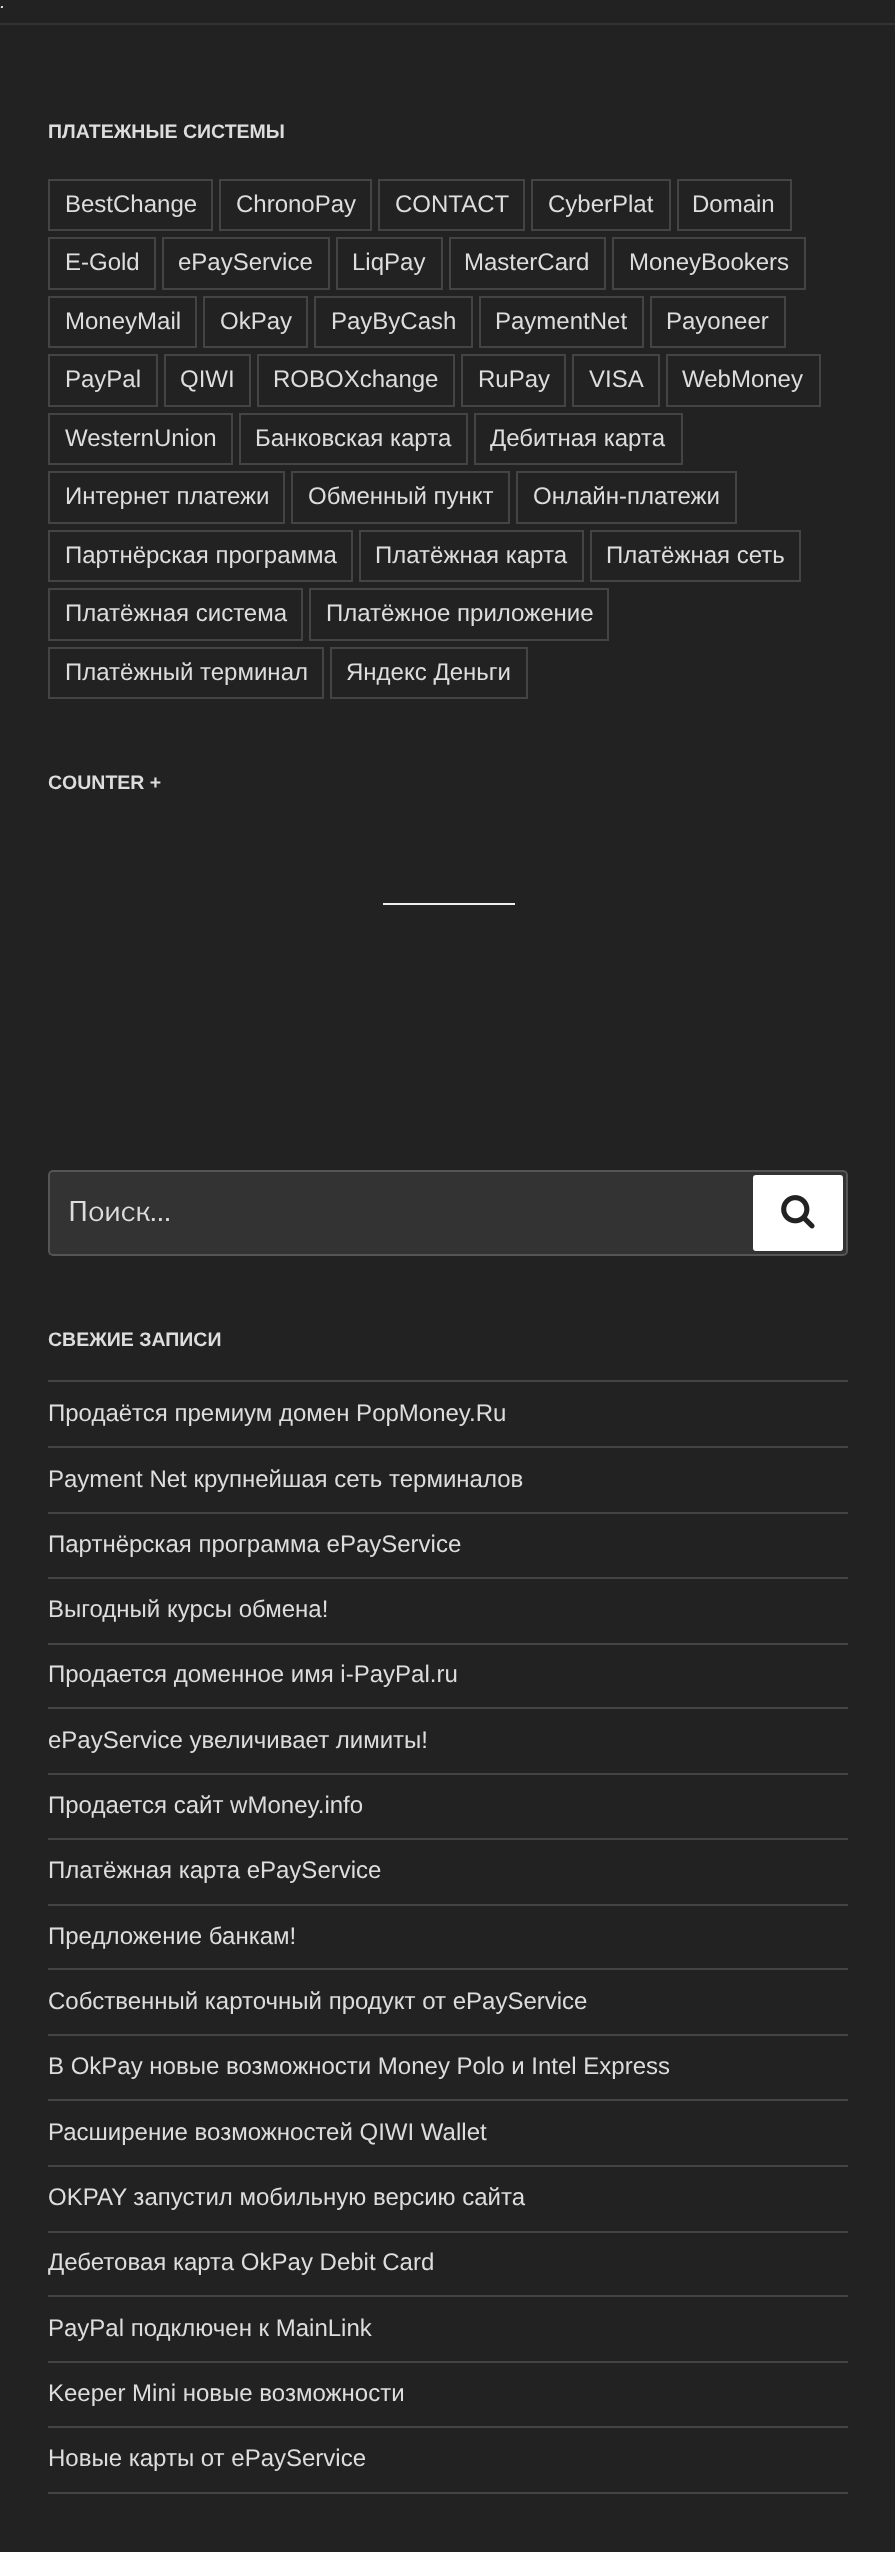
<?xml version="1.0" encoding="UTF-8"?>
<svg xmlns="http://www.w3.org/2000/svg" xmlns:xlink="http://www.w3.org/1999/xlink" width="895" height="2552">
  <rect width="100%" height="100%" fill="#222222" />
  <rect y="23" width="895" height="2" fill="#333333" />
  <rect x="49" y="180" width="163" height="50" fill="none" stroke="#444444" stroke-width="2" />
  <rect x="220" y="180" width="151" height="50" fill="none" stroke="#444444" stroke-width="2" />
  <rect x="379" y="180" width="145" height="50" fill="none" stroke="#444444" stroke-width="2" />
  <rect x="532" y="180" width="138" height="50" fill="none" stroke="#444444" stroke-width="2" />
  <rect x="678" y="180" width="113" height="50" fill="none" stroke="#444444" stroke-width="2" />
  <rect x="49" y="238" width="106" height="51" fill="none" stroke="#444444" stroke-width="2" />
  <rect x="163" y="238" width="166" height="51" fill="none" stroke="#444444" stroke-width="2" />
  <rect x="337" y="238" width="105" height="51" fill="none" stroke="#444444" stroke-width="2" />
  <rect x="450" y="238" width="155" height="51" fill="none" stroke="#444444" stroke-width="2" />
  <rect x="613" y="238" width="192" height="51" fill="none" stroke="#444444" stroke-width="2" />
  <rect x="49" y="297" width="147" height="50" fill="none" stroke="#444444" stroke-width="2" />
  <rect x="204" y="297" width="103" height="50" fill="none" stroke="#444444" stroke-width="2" />
  <rect x="315" y="297" width="157" height="50" fill="none" stroke="#444444" stroke-width="2" />
  <rect x="480" y="297" width="163" height="50" fill="none" stroke="#444444" stroke-width="2" />
  <rect x="651" y="297" width="134" height="50" fill="none" stroke="#444444" stroke-width="2" />
  <rect x="49" y="355" width="108" height="51" fill="none" stroke="#444444" stroke-width="2" />
  <rect x="165" y="355" width="85" height="51" fill="none" stroke="#444444" stroke-width="2" />
  <rect x="258" y="355" width="196" height="51" fill="none" stroke="#444444" stroke-width="2" />
  <rect x="462" y="355" width="103" height="51" fill="none" stroke="#444444" stroke-width="2" />
  <rect x="573" y="355" width="86" height="51" fill="none" stroke="#444444" stroke-width="2" />
  <rect x="667" y="355" width="153" height="51" fill="none" stroke="#444444" stroke-width="2" />
  <rect x="49" y="414" width="183" height="50" fill="none" stroke="#444444" stroke-width="2" />
  <rect x="240" y="414" width="227" height="50" fill="none" stroke="#444444" stroke-width="2" />
  <rect x="475" y="414" width="207" height="50" fill="none" stroke="#444444" stroke-width="2" />
  <rect x="49" y="472" width="235" height="51" fill="none" stroke="#444444" stroke-width="2" />
  <rect x="292" y="472" width="217" height="51" fill="none" stroke="#444444" stroke-width="2" />
  <rect x="517" y="472" width="219" height="51" fill="none" stroke="#444444" stroke-width="2" />
  <rect x="49" y="531" width="303" height="50" fill="none" stroke="#444444" stroke-width="2" />
  <rect x="360" y="531" width="223" height="50" fill="none" stroke="#444444" stroke-width="2" />
  <rect x="591" y="531" width="209" height="50" fill="none" stroke="#444444" stroke-width="2" />
  <rect x="49" y="589" width="253" height="51" fill="none" stroke="#444444" stroke-width="2" />
  <rect x="310" y="589" width="298" height="51" fill="none" stroke="#444444" stroke-width="2" />
  <rect x="49" y="648" width="274" height="50" fill="none" stroke="#444444" stroke-width="2" />
  <rect x="331" y="648" width="196" height="50" fill="none" stroke="#444444" stroke-width="2" />
  <rect x="383" y="903" width="132" height="2" fill="#f0f0f0" />
  <rect x="49" y="1171" width="798" height="84" rx="4" fill="#333333" stroke="#555555" stroke-width="2" />
  <rect x="753" y="1175" width="90" height="76" rx="3" fill="#ffffff" />
  <image x="781" y="1195" width="34" height="34" xlink:href="image1.png" />
  <rect x="48" y="1380" width="800" height="2" fill="#444444" />
  <rect x="48" y="1446" width="800" height="2" fill="#444444" />
  <rect x="48" y="1512" width="800" height="2" fill="#444444" />
  <rect x="48" y="1577" width="800" height="2" fill="#444444" />
  <rect x="48" y="1643" width="800" height="2" fill="#444444" />
  <rect x="48" y="1707" width="800" height="2" fill="#444444" />
  <rect x="48" y="1773" width="800" height="2" fill="#444444" />
  <rect x="48" y="1838" width="800" height="2" fill="#444444" />
  <rect x="48" y="1904" width="800" height="2" fill="#444444" />
  <rect x="48" y="1968" width="800" height="2" fill="#444444" />
  <rect x="48" y="2034" width="800" height="2" fill="#444444" />
  <rect x="48" y="2099" width="800" height="2" fill="#444444" />
  <rect x="48" y="2165" width="800" height="2" fill="#444444" />
  <rect x="48" y="2231" width="800" height="2" fill="#444444" />
  <rect x="48" y="2295" width="800" height="2" fill="#444444" />
  <rect x="48" y="2361" width="800" height="2" fill="#444444" />
  <rect x="48" y="2426" width="800" height="2" fill="#444444" />
  <rect x="48" y="2492" width="800" height="2" fill="#444444" />
  <text x="0" y="8" style="font-family: Liberation Sans; font-size: 19.5px; font-style: italic; fill: #eeeeee">.</text>
  <text x="48" y="138" style="font-family: Liberation Sans; font-size: 19.5px; font-weight: bold; fill: #dddddd">ПЛАТЕЖНЫЕ СИСТЕМЫ</text>
  <text x="65" y="212" style="font-family: Liberation Sans; font-size: 24px; fill: #dddddd">BestChange</text>
  <text x="236" y="212" style="font-family: Liberation Sans; font-size: 24px; fill: #dddddd">ChronoPay</text>
  <text x="395" y="212" style="font-family: Liberation Sans; font-size: 24px; fill: #dddddd">CONTACT</text>
  <text x="548" y="212" style="font-family: Liberation Sans; font-size: 24px; fill: #dddddd">CyberPlat</text>
  <text x="692" y="212" style="font-family: Liberation Sans; font-size: 24px; fill: #dddddd">Domain</text>
  <text x="65" y="270" style="font-family: Liberation Sans; font-size: 24px; fill: #dddddd">E-Gold</text>
  <text x="178" y="270" style="font-family: Liberation Sans; font-size: 24px; fill: #dddddd">ePayService</text>
  <text x="352" y="270" style="font-family: Liberation Sans; font-size: 24px; fill: #dddddd">LiqPay</text>
  <text x="464" y="270" style="font-family: Liberation Sans; font-size: 24px; fill: #dddddd">MasterCard</text>
  <text x="629" y="270" style="font-family: Liberation Sans; font-size: 24px; fill: #dddddd">MoneyBookers</text>
  <text x="65" y="329" style="font-family: Liberation Sans; font-size: 24px; fill: #dddddd">MoneyMail</text>
  <text x="220" y="329" style="font-family: Liberation Sans; font-size: 24px; fill: #dddddd">OkPay</text>
  <text x="331" y="329" style="font-family: Liberation Sans; font-size: 24px; fill: #dddddd">PayByCash</text>
  <text x="495" y="329" style="font-family: Liberation Sans; font-size: 24px; fill: #dddddd">PaymentNet</text>
  <text x="666" y="329" style="font-family: Liberation Sans; font-size: 24px; fill: #dddddd">Payoneer</text>
  <text x="65" y="387" style="font-family: Liberation Sans; font-size: 24px; fill: #dddddd">PayPal</text>
  <text x="180" y="387" style="font-family: Liberation Sans; font-size: 24px; fill: #dddddd">QIWI</text>
  <text x="273" y="387" style="font-family: Liberation Sans; font-size: 24px; fill: #dddddd">ROBOXchange</text>
  <text x="478" y="387" style="font-family: Liberation Sans; font-size: 24px; fill: #dddddd">RuPay</text>
  <text x="589" y="387" style="font-family: Liberation Sans; font-size: 24px; fill: #dddddd">VISA</text>
  <text x="682" y="387" style="font-family: Liberation Sans; font-size: 24px; fill: #dddddd">WebMoney</text>
  <text x="65" y="446" style="font-family: Liberation Sans; font-size: 24px; fill: #dddddd">WesternUnion</text>
  <text x="255" y="446" style="font-family: Liberation Sans; font-size: 24px; fill: #dddddd">Банковская карта</text>
  <text x="490" y="446" style="font-family: Liberation Sans; font-size: 24px; fill: #dddddd">Дебитная карта</text>
  <text x="65" y="504" style="font-family: Liberation Sans; font-size: 24px; fill: #dddddd">Интернет платежи</text>
  <text x="308" y="504" style="font-family: Liberation Sans; font-size: 24px; fill: #dddddd">Обменный пункт</text>
  <text x="533" y="504" style="font-family: Liberation Sans; font-size: 24px; fill: #dddddd">Онлайн-платежи</text>
  <text x="65" y="563" style="font-family: Liberation Sans; font-size: 24px; fill: #dddddd">Партнёрская программа</text>
  <text x="375" y="563" style="font-family: Liberation Sans; font-size: 24px; fill: #dddddd">Платёжная карта</text>
  <text x="606" y="563" style="font-family: Liberation Sans; font-size: 24px; fill: #dddddd">Платёжная сеть</text>
  <text x="65" y="621" style="font-family: Liberation Sans; font-size: 24px; fill: #dddddd">Платёжная система</text>
  <text x="326" y="621" style="font-family: Liberation Sans; font-size: 24px; fill: #dddddd">Платёжное приложение</text>
  <text x="65" y="680" style="font-family: Liberation Sans; font-size: 24px; fill: #dddddd">Платёжный терминал</text>
  <text x="346" y="680" style="font-family: Liberation Sans; font-size: 24px; fill: #dddddd">Яндекс Деньги</text>
  <text x="48" y="789" style="font-family: Liberation Sans; font-size: 19.5px; font-weight: bold; fill: #dddddd">COUNTER +</text>
  <text x="68" y="1221" style="font-family: Libre Franklin; font-size: 27px; fill: #dddddd">Поиск…</text>
  <text x="48" y="1346" style="font-family: Liberation Sans; font-size: 19.5px; font-weight: bold; fill: #dddddd">СВЕЖИЕ ЗАПИСИ</text>
  <text x="48" y="1421" style="font-family: Liberation Sans; font-size: 24px; fill: #dddddd">Продаётся премиум домен PopMoney.Ru</text>
  <text x="48" y="1487" style="font-family: Liberation Sans; font-size: 24px; fill: #dddddd">Payment Net крупнейшая сеть терминалов</text>
  <text x="48" y="1552" style="font-family: Liberation Sans; font-size: 24px; fill: #dddddd">Партнёрская программа ePayService</text>
  <text x="48" y="1617" style="font-family: Liberation Sans; font-size: 24px; fill: #dddddd">Выгодный курсы обмена!</text>
  <text x="48" y="1682" style="font-family: Liberation Sans; font-size: 24px; fill: #dddddd">Продается доменное имя i-PayPal.ru</text>
  <text x="48" y="1748" style="font-family: Liberation Sans; font-size: 24px; fill: #dddddd">ePayService увеличивает лимиты!</text>
  <text x="48" y="1813" style="font-family: Liberation Sans; font-size: 24px; fill: #dddddd">Продается сайт wMoney.info</text>
  <text x="48" y="1878" style="font-family: Liberation Sans; font-size: 24px; fill: #dddddd">Платёжная карта ePayService</text>
  <text x="48" y="1944" style="font-family: Liberation Sans; font-size: 24px; fill: #dddddd">Предложение банкам!</text>
  <text x="48" y="2009" style="font-family: Liberation Sans; font-size: 24px; fill: #dddddd">Cобственный карточный продукт от ePayService</text>
  <text x="48" y="2074" style="font-family: Liberation Sans; font-size: 24px; fill: #dddddd">В OkPay новые возможности Money Polo и Intel Express</text>
  <text x="48" y="2140" style="font-family: Liberation Sans; font-size: 24px; fill: #dddddd">Расширение возможностей QIWI Wallet</text>
  <text x="48" y="2205" style="font-family: Liberation Sans; font-size: 24px; fill: #dddddd">OKPAY запустил мобильную версию сайта</text>
  <text x="48" y="2270" style="font-family: Liberation Sans; font-size: 24px; fill: #dddddd">Дебетовая карта OkPay Debit Card</text>
  <text x="48" y="2336" style="font-family: Liberation Sans; font-size: 24px; fill: #dddddd">PayPal подключен к MainLink</text>
  <text x="48" y="2401" style="font-family: Liberation Sans; font-size: 24px; fill: #dddddd">Keeper Mini новые возможности</text>
  <text x="48" y="2466" style="font-family: Liberation Sans; font-size: 24px; fill: #dddddd">Новые карты от ePayService</text>
</svg>
